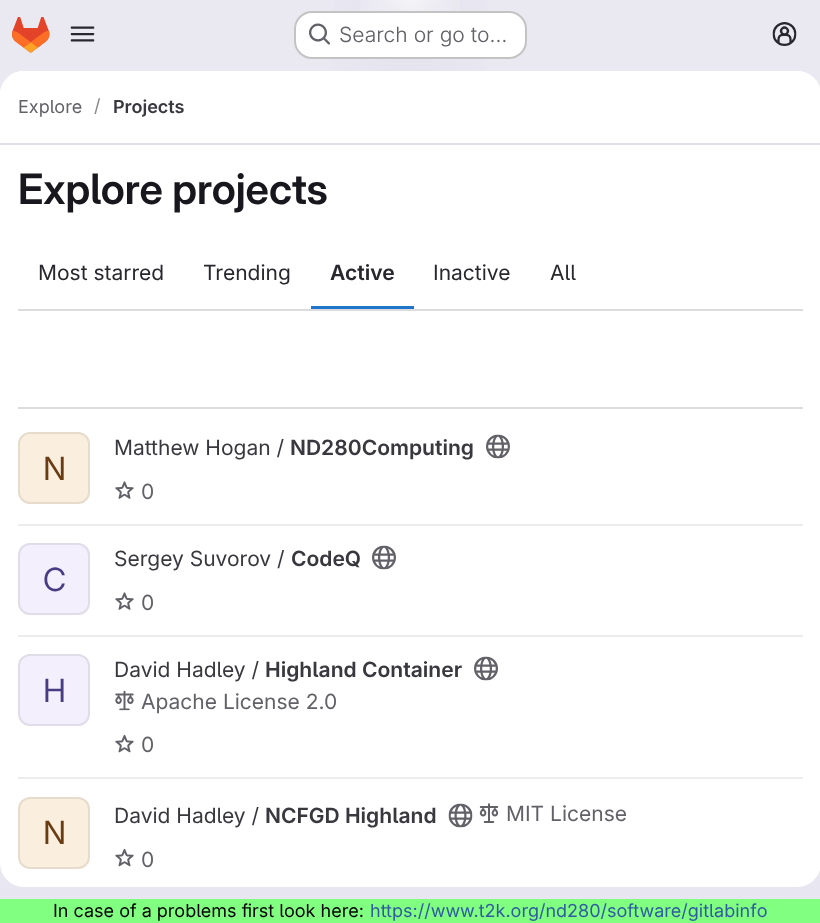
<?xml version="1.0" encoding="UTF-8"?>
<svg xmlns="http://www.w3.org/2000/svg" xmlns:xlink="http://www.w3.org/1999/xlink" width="820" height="923">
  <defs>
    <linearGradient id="g1" gradientUnits="userSpaceOnUse" x1="502" y1="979" x2="319" y2="-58"><stop offset="0" stop-color="#e8e6f0" /><stop offset="0.7" stop-color="#eae9f2" /></linearGradient>
    <radialGradient id="g2" gradientUnits="userSpaceOnUse" cx="0" cy="0" r="1" gradientTransform="matrix(410 0 0 924 410 -1.5)"><stop offset="0" stop-color="#e4e2ed" /><stop offset="0.26" stop-color="#e4e2ed" stop-opacity="0" /></radialGradient>
    <radialGradient id="g3" gradientUnits="userSpaceOnUse" cx="0" cy="0" r="1" gradientTransform="matrix(410 0 0 924 410 -1.5)"><stop offset="0" stop-color="#e4e2ec" /><stop offset="0.18" stop-color="#e4e2ec" stop-opacity="0" /></radialGradient>
    <radialGradient id="g4" gradientUnits="userSpaceOnUse" cx="410" cy="-1.5" r="1011"><stop offset="0" stop-color="#ffffff" stop-opacity="0.6" /><stop offset="0.06" stop-color="#ffffff" stop-opacity="0" /></radialGradient>
  </defs>
  <rect width="100%" height="100%" fill="#ffffff" />
  <rect width="820" height="899" fill="url(#g1)" />
  <rect x="333" width="154" height="71" fill="url(#g2)" />
  <rect x="383" y="3" width="54" height="56" fill="url(#g3)" />
  <rect x="360" width="100" height="11" fill="url(#g4)" />
  <image x="12" y="17" width="38" height="36" xlink:href="image1.png" />
  <image x="70" y="26" width="25" height="16" xlink:href="image2.png" />
  <rect x="294" y="11" width="233" height="48" rx="18" fill="#ffffff" />
  <rect x="295" y="12" width="231" height="46" rx="17" fill="none" stroke="#050506" stroke-opacity="0.24" stroke-width="2" />
  <image x="309" y="23" width="21" height="22" xlink:href="image3.png" />
  <image x="772" y="22" width="25" height="24" xlink:href="image4.png" />
  <rect y="71" width="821" height="816" rx="24" fill="#ffffff" />
  <path d="M 24 71 h 773 c 13.5 0 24 10.5 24 24 v 49 h -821 v -49 c 0 -13.5 10.5 -24 24 -24 z" fill="#ffffff" />
  <rect y="143" width="820" height="2" fill="#e1dfec" />
  <rect x="311" y="306" width="103" height="3" fill="#1f75cb" />
  <rect x="18" y="309" width="785" height="2" fill="#dcdcde" />
  <rect x="18" y="407" width="785" height="2" fill="#dcdcde" />
  <rect x="18" y="524" width="785" height="2" fill="#ececef" />
  <rect x="18" y="432" width="72" height="72" rx="12" fill="#faefde" />
  <rect x="19" y="433" width="70" height="70" rx="11" fill="none" stroke="#050506" stroke-opacity="0.08" stroke-width="2" />
  <image x="486" y="434" width="24" height="25" xlink:href="image5.png" />
  <image x="115" y="481" width="19" height="18" xlink:href="image6.png" />
  <rect x="18" y="635" width="785" height="2" fill="#ececef" />
  <rect x="18" y="543" width="72" height="72" rx="12" fill="#f3effc" />
  <rect x="19" y="544" width="70" height="70" rx="11" fill="none" stroke="#050506" stroke-opacity="0.08" stroke-width="2" />
  <image x="372" y="545" width="24" height="25" xlink:href="image7.png" />
  <image x="115" y="592" width="19" height="18" xlink:href="image6.png" />
  <rect x="18" y="777" width="785" height="2" fill="#ececef" />
  <rect x="18" y="654" width="72" height="72" rx="12" fill="#f3effc" />
  <rect x="19" y="655" width="70" height="70" rx="11" fill="none" stroke="#050506" stroke-opacity="0.08" stroke-width="2" />
  <image x="474" y="656" width="24" height="25" xlink:href="image8.png" />
  <image x="115" y="690" width="19" height="21" xlink:href="image9.png" />
  <image x="115" y="734" width="19" height="19" xlink:href="image10.png" />
  <rect x="18" y="797" width="72" height="72" rx="12" fill="#faefde" />
  <rect x="19" y="798" width="70" height="70" rx="11" fill="none" stroke="#050506" stroke-opacity="0.08" stroke-width="2" />
  <image x="448" y="803" width="25" height="25" xlink:href="image11.png" />
  <image x="479" y="803" width="20" height="20" xlink:href="image12.png" />
  <image x="115" y="848" width="19" height="19" xlink:href="image13.png" />
  <rect y="899" width="820" height="24" fill="#80ff80" />
  <text x="339" y="42" style="font-family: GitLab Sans; font-size: 21px; font-weight: 300; fill: #626168">Search or go to…</text>
  <text x="18" y="113" style="font-family: GitLab Sans; font-size: 18px; fill: #626168">Explore</text>
  <text x="94" y="112" style="font-family: GitLab Sans; font-size: 18px; fill: #89888d">/</text>
  <text x="113" y="113" style="font-family: 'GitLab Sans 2'; font-size: 18px; font-weight: 600; fill: #3a383f">Projects</text>
  <text x="18" y="204" style="font-family: GitLab Sans; font-size: 42px; font-weight: 600; fill: #18171d">Explore projects</text>
  <text x="38" y="280" style="font-family: GitLab Sans; font-size: 21px; fill: #28272d">Most starred</text>
  <text x="203" y="280" style="font-family: GitLab Sans; font-size: 21px; fill: #28272d">Trending</text>
  <text x="330" y="280" style="font-family: 'GitLab Sans 2'; font-size: 21px; font-weight: 600; fill: #28272d">Active</text>
  <text x="433" y="280" style="font-family: GitLab Sans; font-size: 21px; fill: #28272d">Inactive</text>
  <text x="550" y="280" style="font-family: GitLab Sans; font-size: 21px; fill: #28272d">All</text>
  <text x="43" y="480" style="font-family: 'GitLab Sans 2'; font-size: 32px; fill: #693c14">N</text>
  <text x="114" y="455" style="font-family: GitLab Sans; font-size: 21px; fill: #3a383f">Matthew Hogan /</text>
  <text x="290" y="455" style="font-family: 'GitLab Sans 2'; font-size: 21px; font-weight: 600; fill: #3a383f">ND280Computing</text>
  <text x="141" y="499" style="font-family: GitLab Sans; font-size: 21px; fill: #626168">0</text>
  <text x="43" y="591" style="font-family: 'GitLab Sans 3'; font-size: 32px; fill: #493c83">C</text>
  <text x="114" y="566" style="font-family: GitLab Sans; font-size: 21px; fill: #3a383f">Sergey Suvorov /</text>
  <text x="291" y="566" style="font-family: 'GitLab Sans 2'; font-size: 21px; font-weight: 600; fill: #3a383f">CodeQ</text>
  <text x="141" y="610" style="font-family: GitLab Sans; font-size: 21px; fill: #626168">0</text>
  <text x="43" y="702" style="font-family: 'GitLab Sans 2'; font-size: 32px; fill: #493c83">H</text>
  <text x="114" y="677" style="font-family: GitLab Sans; font-size: 21px; fill: #3a383f">David Hadley /</text>
  <text x="265" y="677" style="font-family: 'GitLab Sans 2'; font-size: 21px; font-weight: 600; fill: #3a383f">Highland Container</text>
  <text x="141" y="709" style="font-family: GitLab Sans; font-size: 21px; fill: #626168">Apache License 2.0</text>
  <text x="141" y="752" style="font-family: GitLab Sans; font-size: 21px; fill: #626168">0</text>
  <text x="43" y="844" style="font-family: 'GitLab Sans 2'; font-size: 32px; fill: #693c14">N</text>
  <text x="114" y="823" style="font-family: GitLab Sans; font-size: 21px; fill: #3a383f">David Hadley /</text>
  <text x="265" y="823" style="font-family: 'GitLab Sans 2'; font-size: 21px; font-weight: 600; fill: #3a383f">NCFGD Highland</text>
  <text x="506" y="821" style="font-family: GitLab Sans; font-size: 21px; fill: #626168">MIT License</text>
  <text x="141" y="867" style="font-family: GitLab Sans; font-size: 21px; fill: #626168">0</text>
  <text x="53" y="917" style="font-family: GitLab Sans; font-size: 18px; fill: #000000">In case of a problems first look here:</text>
  <text x="370" y="917" style="font-family: GitLab Sans; font-size: 18px; fill: #2f5ca0">https://www.t2k.org/nd280/software/gitlabinfo</text>
</svg>
